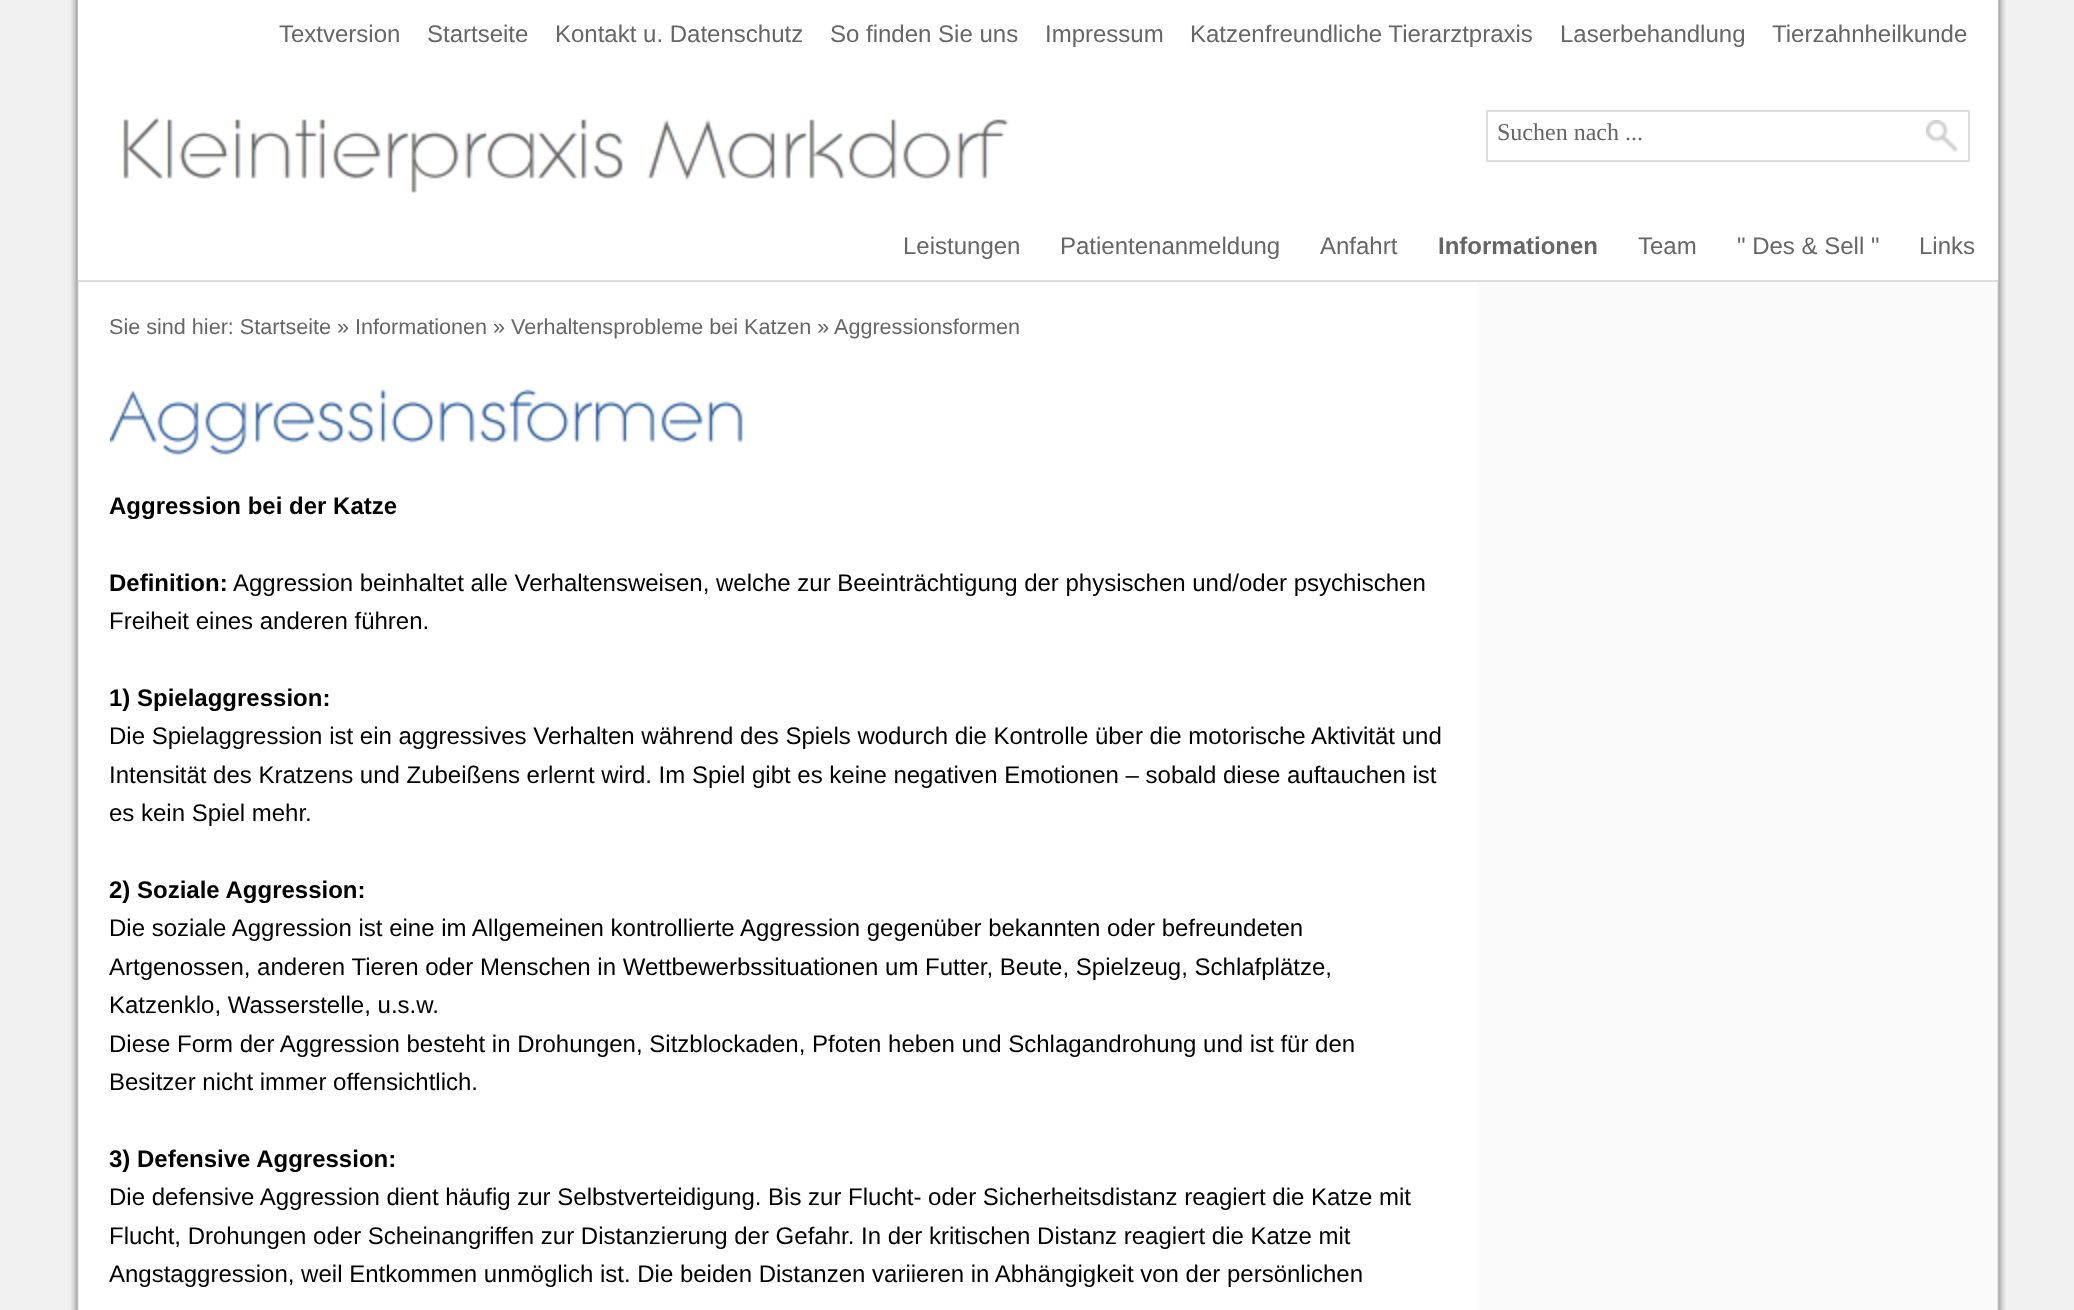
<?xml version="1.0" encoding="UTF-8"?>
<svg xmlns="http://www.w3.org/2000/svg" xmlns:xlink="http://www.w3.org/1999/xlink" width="2074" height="1310">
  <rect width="100%" height="100%" fill="#f0f0f0" />
  <image x="70" y="0" width="1936" height="1310" xlink:href="image1.png" />
  <rect x="78" width="1920" height="280" fill="#ffffff" />
  <image x="123" y="117" width="886" height="76" xlink:href="image2.png" />
  <rect x="1487" y="111" width="482" height="50" fill="none" stroke="#dddddd" stroke-width="2" />
  <image x="1926" y="120" width="32" height="32" xlink:href="image3.png" />
  <rect x="78" y="280" width="1920" height="2" fill="#dddddd" />
  <image x="110" y="389" width="633" height="66" xlink:href="image4.png" />
  <text x="279" y="42" style="font-family: Liberation Sans; font-size: 24px; fill: #666666">Textversion</text>
  <text x="427" y="42" style="font-family: Liberation Sans; font-size: 24px; fill: #666666">Startseite</text>
  <text x="555" y="42" style="font-family: Liberation Sans; font-size: 24px; fill: #666666">Kontakt u. Datenschutz</text>
  <text x="830" y="42" style="font-family: Liberation Sans; font-size: 24px; fill: #666666">So finden Sie uns</text>
  <text x="1045" y="42" style="font-family: Liberation Sans; font-size: 24px; fill: #666666">Impressum</text>
  <text x="1190" y="42" style="font-family: Liberation Sans; font-size: 24px; fill: #666666">Katzenfreundliche Tierarztpraxis</text>
  <text x="1560" y="42" style="font-family: Liberation Sans; font-size: 24px; fill: #666666">Laserbehandlung</text>
  <text x="1772" y="42" style="font-family: Liberation Sans; font-size: 24px; fill: #666666">Tierzahnheilkunde</text>
  <text x="1497" y="140" style="font-family: Liberation Serif; font-size: 24px; fill: #666666">Suchen nach ...</text>
  <text x="903" y="254" style="font-family: Liberation Sans; font-size: 24px; fill: #666666">Leistungen</text>
  <text x="1060" y="254" style="font-family: Liberation Sans; font-size: 24px; fill: #666666">Patientenanmeldung</text>
  <text x="1320" y="254" style="font-family: Liberation Sans; font-size: 24px; fill: #666666">Anfahrt</text>
  <text x="1438" y="254" style="font-family: Liberation Sans; font-size: 24px; font-weight: bold; fill: #666666">Informationen</text>
  <text x="1638" y="254" style="font-family: Liberation Sans; font-size: 24px; fill: #666666">Team</text>
  <text x="1737" y="254" style="font-family: Liberation Sans; font-size: 24px; fill: #666666">" Des &amp; Sell "</text>
  <text x="1919" y="254" style="font-family: Liberation Sans; font-size: 24px; fill: #666666">Links</text>
  <text x="109" y="334" style="font-family: Liberation Sans; font-size: 21.6px; fill: #666666">Sie sind hier: Startseite » Informationen » Verhaltensprobleme bei Katzen »</text>
  <text x="834" y="334" style="font-family: Liberation Sans; font-size: 21.6px; fill: #666666">Aggressionsformen</text>
  <text x="109" y="514" style="font-family: Liberation Sans; font-size: 24px; font-weight: bold; fill: #000000">Aggression bei der Katze</text>
  <text x="109" y="591" style="font-family: Liberation Sans; font-size: 24px; font-weight: bold; fill: #000000">Definition:</text>
  <text x="233" y="591" style="font-family: Liberation Sans; font-size: 24px; fill: #000000">Aggression beinhaltet alle Verhaltensweisen, welche zur Beeinträchtigung der physischen und/oder psychischen</text>
  <text x="109" y="629" style="font-family: Liberation Sans; font-size: 24px; fill: #000000">Freiheit eines anderen führen.</text>
  <text x="109" y="706" style="font-family: Liberation Sans; font-size: 24px; font-weight: bold; fill: #000000">1) Spielaggression:</text>
  <text x="109" y="744" style="font-family: Liberation Sans; font-size: 24px; fill: #000000">Die Spielaggression ist ein aggressives Verhalten während des Spiels wodurch die Kontrolle über die motorische Aktivität und</text>
  <text x="109" y="783" style="font-family: Liberation Sans; font-size: 24px; fill: #000000">Intensität des Kratzens und Zubeißens erlernt wird. Im Spiel gibt es keine negativen Emotionen – sobald diese auftauchen ist</text>
  <text x="109" y="821" style="font-family: Liberation Sans; font-size: 24px; fill: #000000">es kein Spiel mehr.</text>
  <text x="109" y="898" style="font-family: Liberation Sans; font-size: 24px; font-weight: bold; fill: #000000">2) Soziale Aggression:</text>
  <text x="109" y="936" style="font-family: Liberation Sans; font-size: 24px; fill: #000000">Die soziale Aggression ist eine im Allgemeinen kontrollierte Aggression gegenüber bekannten oder befreundeten</text>
  <text x="109" y="975" style="font-family: Liberation Sans; font-size: 24px; fill: #000000">Artgenossen, anderen Tieren oder Menschen in Wettbewerbssituationen um Futter, Beute, Spielzeug, Schlafplätze,</text>
  <text x="109" y="1013" style="font-family: Liberation Sans; font-size: 24px; fill: #000000">Katzenklo, Wasserstelle, u.s.w.</text>
  <text x="109" y="1052" style="font-family: Liberation Sans; font-size: 24px; fill: #000000">Diese Form der Aggression besteht in Drohungen, Sitzblockaden, Pfoten heben und Schlagandrohung und ist für den</text>
  <text x="109" y="1090" style="font-family: Liberation Sans; font-size: 24px; fill: #000000">Besitzer nicht immer offensichtlich.</text>
  <text x="109" y="1167" style="font-family: Liberation Sans; font-size: 24px; font-weight: bold; fill: #000000">3) Defensive Aggression:</text>
  <text x="109" y="1205" style="font-family: Liberation Sans; font-size: 24px; fill: #000000">Die defensive Aggression dient häufig zur Selbstverteidigung. Bis zur Flucht- oder Sicherheitsdistanz reagiert die Katze mit</text>
  <text x="109" y="1244" style="font-family: Liberation Sans; font-size: 24px; fill: #000000">Flucht, Drohungen oder Scheinangriffen zur Distanzierung der Gefahr. In der kritischen Distanz reagiert die Katze mit</text>
  <text x="109" y="1282" style="font-family: Liberation Sans; font-size: 24px; fill: #000000">Angstaggression, weil Entkommen unmöglich ist. Die beiden Distanzen variieren in Abhängigkeit von der persönlichen</text>
</svg>
